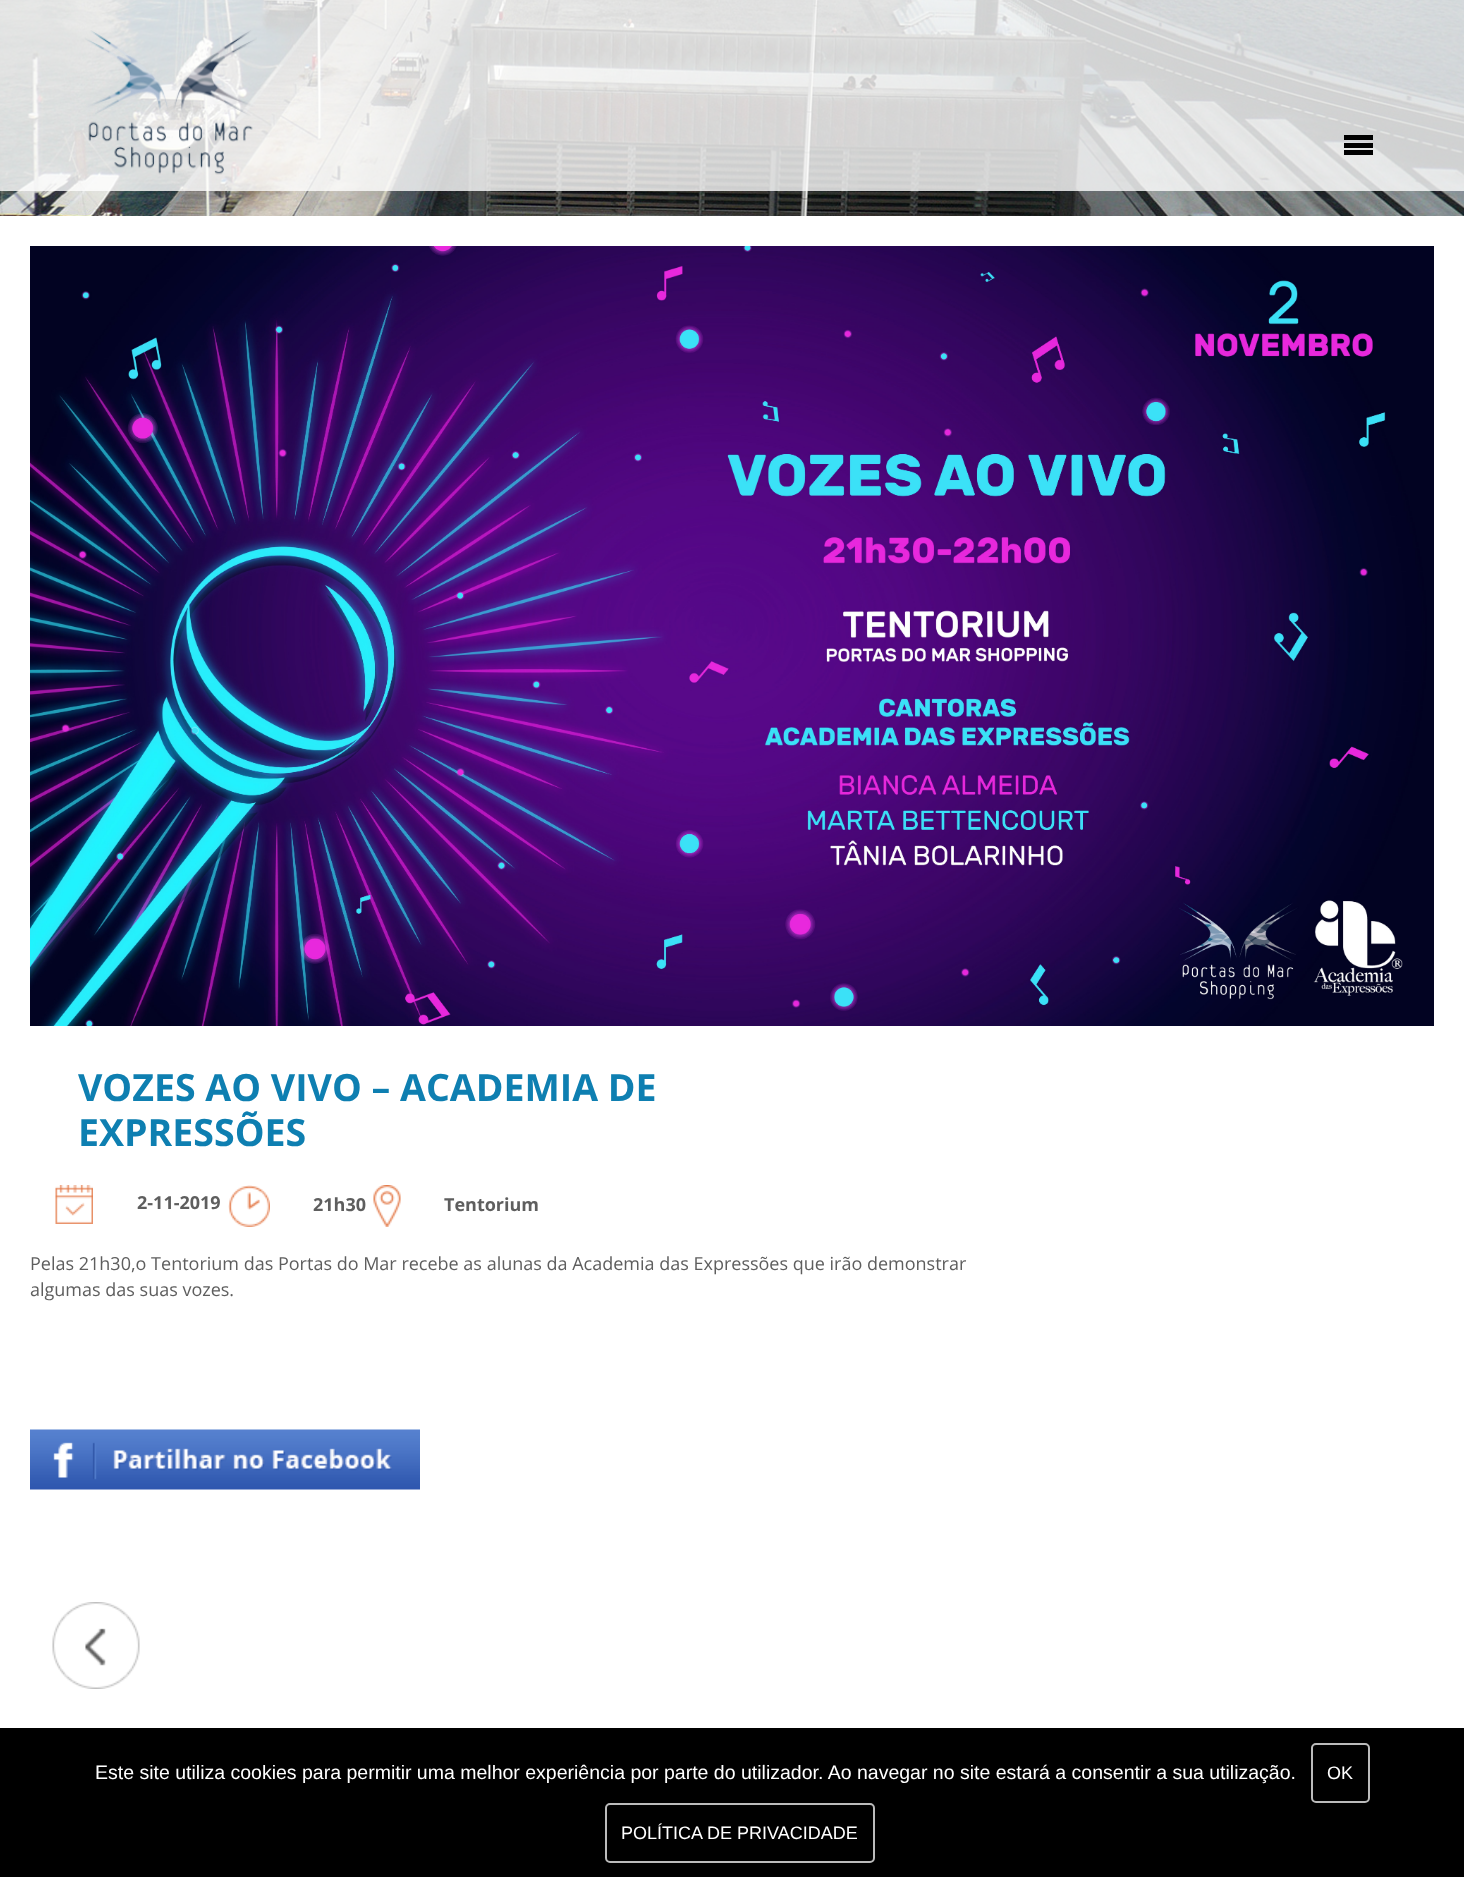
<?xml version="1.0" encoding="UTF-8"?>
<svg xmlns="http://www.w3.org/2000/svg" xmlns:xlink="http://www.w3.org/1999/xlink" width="1464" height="1877">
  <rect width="100%" height="100%" fill="#ffffff" />
  <image x="0" y="0" width="1464" height="216" xlink:href="image2.png" />
  <rect width="1464" height="191" fill="#ffffff" fill-opacity="0.8" />
  <image x="85" y="30" width="172" height="145" xlink:href="image1.png" />
  <rect x="1344" y="135" width="29" height="5" fill="#000000" />
  <rect x="1344" y="143" width="29" height="5" fill="#000000" />
  <rect x="1344" y="150" width="29" height="5" fill="#000000" />
  <image x="30" y="246" width="1404" height="780" xlink:href="image3.png" />
  <image x="55" y="1185" width="38" height="39" xlink:href="image4.png" />
  <image x="228" y="1185" width="42" height="42" xlink:href="image5.png" />
  <image x="373" y="1185" width="28" height="42" xlink:href="image6.png" />
  <image x="30" y="1429" width="390" height="61" xlink:href="image7.png" />
  <image x="52" y="1602" width="88" height="87" xlink:href="image8.png" />
  <rect y="1728" width="1464" height="149" fill="#000000" />
  <rect x="1312" y="1744" width="57" height="58" rx="4" fill="none" stroke="#bbbbbb" stroke-width="2" />
  <rect x="606" y="1804" width="268" height="58" rx="4" fill="none" stroke="#bbbbbb" stroke-width="2" />
  <text x="78" y="1101" style="font-family: Open Sans; font-size: 37.5px; font-weight: bold; fill: #0e7fb1">VOZES AO VIVO – ACADEMIA DE</text>
  <text x="78" y="1146" style="font-family: Open Sans; font-size: 37.5px; font-weight: bold; fill: #0e7fb1">EXPRESSÕES</text>
  <text x="137" y="1209" style="font-family: Open Sans; font-size: 18px; font-weight: bold; fill: #5e5e5e">2-11-2019</text>
  <text x="313" y="1211" style="font-family: Open Sans; font-size: 18px; font-weight: bold; fill: #5e5e5e">21h30</text>
  <text x="444" y="1211" style="font-family: Open Sans; font-size: 18px; font-weight: bold; fill: #5e5e5e">Tentorium</text>
  <text x="30" y="1270" style="font-family: Open Sans; font-size: 18px; fill: #5e5e5e">Pelas 21h30,o Tentorium das Portas do Mar recebe as alunas da Academia das Expressões que irão demonstrar</text>
  <text x="30" y="1296" style="font-family: Open Sans; font-size: 18px; fill: #5e5e5e">algumas das suas vozes.</text>
  <text x="95" y="1779" style="font-family: Liberation Sans; font-size: 19.5px; fill: #ffffff">Este site utiliza cookies para permitir uma melhor experiência por parte do utilizador. Ao navegar no site estará a consentir a sua utilização.</text>
  <text x="1327" y="1779" style="font-family: Liberation Sans; font-size: 18px; fill: #ffffff">OK</text>
  <text x="621" y="1839" style="font-family: Liberation Sans; font-size: 18px; fill: #ffffff">POLÍTICA DE PRIVACIDADE</text>
</svg>
